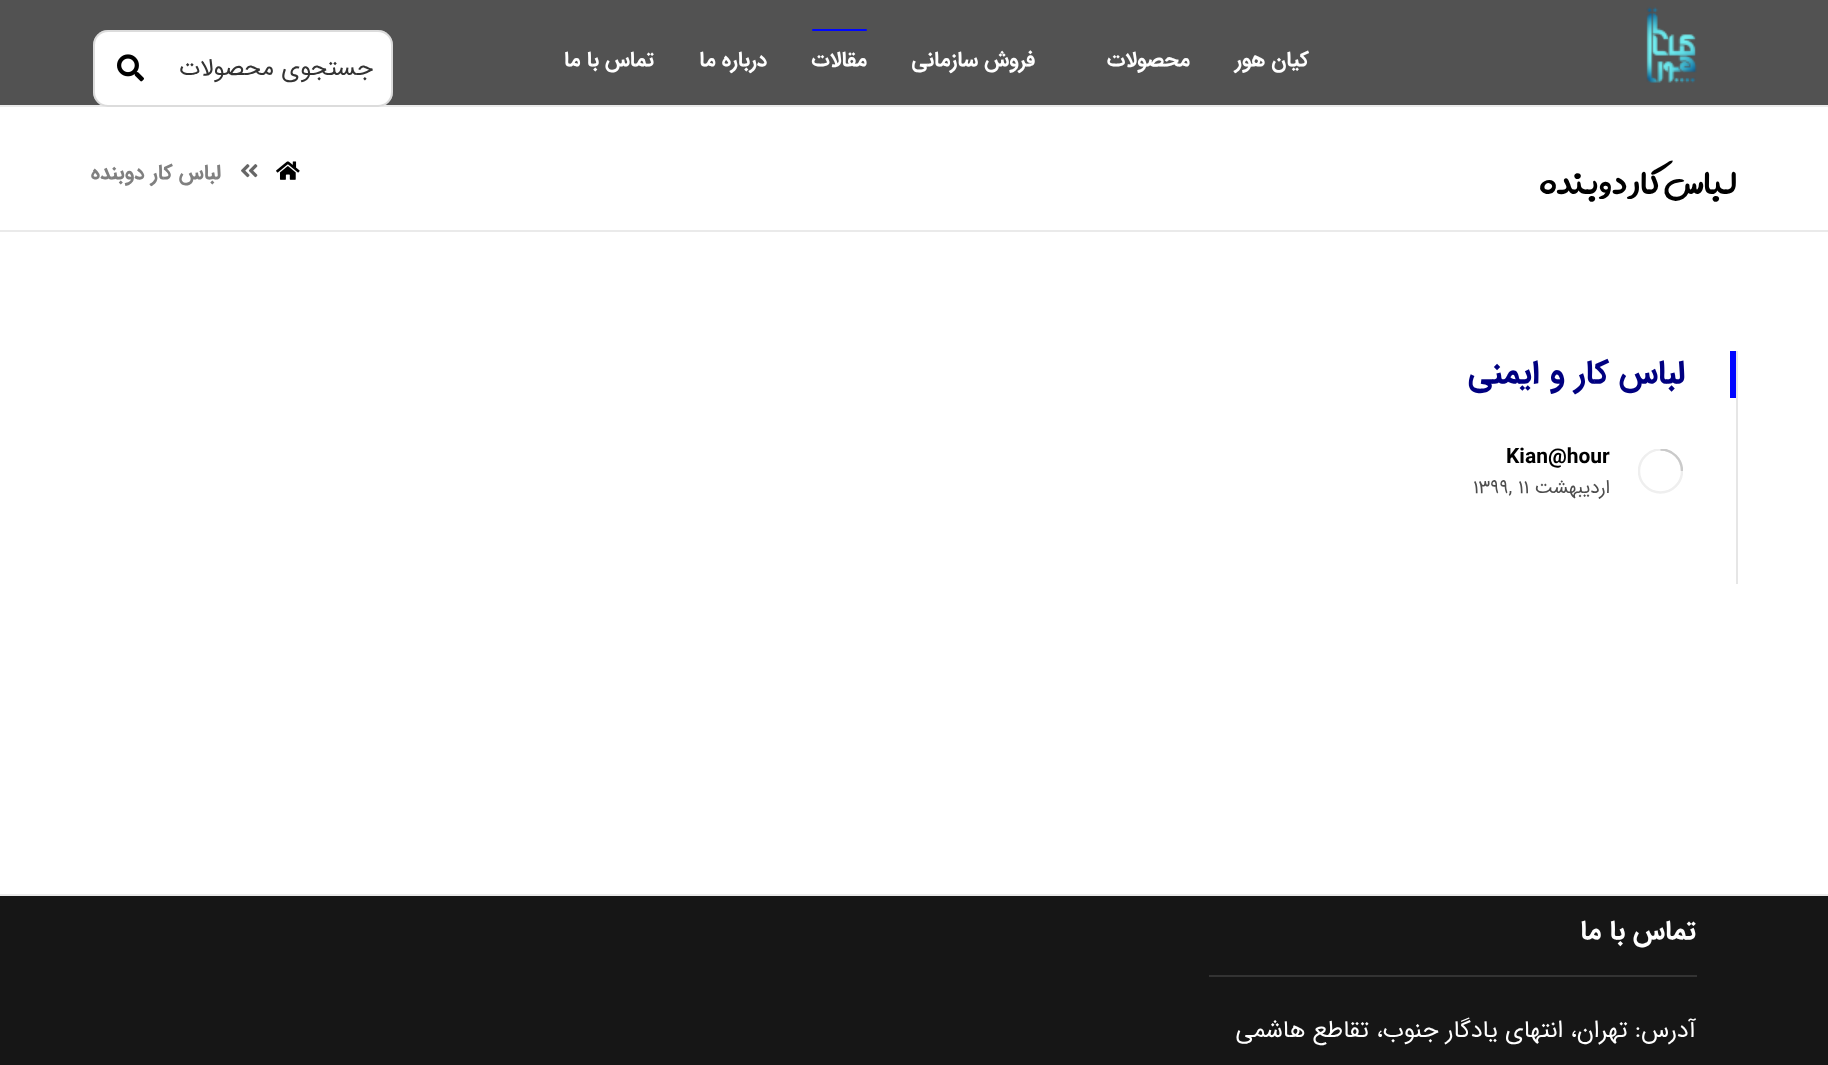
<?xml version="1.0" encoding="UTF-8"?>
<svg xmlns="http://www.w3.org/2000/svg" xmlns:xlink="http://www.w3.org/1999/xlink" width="1828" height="1065">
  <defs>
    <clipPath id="clip1"><rect x="1638" y="449" width="45" height="45" /></clipPath>
  </defs>
  <rect width="100%" height="100%" fill="#ffffff" />
  <rect width="1828" height="105" fill="#525252" />
  <rect y="105" width="1828" height="2" fill="#eaeaea" />
  <image x="1646" y="7" width="51" height="76" xlink:href="image1.png" />
  <rect x="812" y="29" width="55" height="2" rx="1" fill="#0006ff" />
  <rect x="93" y="30" width="300" height="77" rx="15" fill="#ffffff" />
  <rect x="94" y="31" width="298" height="75" rx="14" fill="none" stroke="#a7a7a7" stroke-opacity="0.4" stroke-width="2" />
  <image x="117" y="54" width="27" height="28" xlink:href="image2.png" />
  <rect y="230" width="1828" height="2" fill="#eaeaea" />
  <image x="276" y="161" width="24" height="19" xlink:href="image3.png" />
  <image x="241" y="164" width="17" height="14" xlink:href="image4.png" />
  <rect x="1736" y="351" width="2" height="233" fill="#e6e6e6" />
  <rect x="1730" y="351" width="6" height="47" fill="#0006ff" />
  <g clip-path="url(#clip1)">
    <circle cx="1660.5" cy="471" r="21.5" fill="none" stroke="#efefef" stroke-width="2.4" />
    <path d="M 1682 471 c 0 -12 -9.5 -21.5 -21.5 -21.5" fill="none" stroke="#cacaca" stroke-width="2.4" />
  </g>
  <rect y="896" width="1828" height="169" fill="#161616" />
  <rect y="894" width="1828" height="2" fill="#eaeaea" />
  <rect x="1209" y="975" width="488" height="2" fill="#333333" />
  <text x="1309" y="66" style="font-family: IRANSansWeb; font-size: 21px; font-weight: bold; direction: rtl; fill: #ffffff">کیان هور</text>
  <text x="1190" y="66" style="font-family: IRANSansWeb; font-size: 21px; font-weight: bold; direction: rtl; fill: #ffffff">محصولات</text>
  <text x="1035" y="66" style="font-family: IRANSansWeb; font-size: 21px; font-weight: bold; direction: rtl; fill: #ffffff">فروش سازمانی</text>
  <text x="867" y="66" style="font-family: IRANSansWeb; font-size: 21px; font-weight: bold; direction: rtl; fill: #ffffff">مقالات</text>
  <text x="767" y="66" style="font-family: IRANSansWeb; font-size: 21px; font-weight: bold; direction: rtl; fill: #ffffff">درباره ما</text>
  <text x="654" y="66" style="font-family: IRANSansWeb; font-size: 21px; font-weight: bold; direction: rtl; fill: #ffffff">تماس با ما</text>
  <text x="373" y="75" style="font-family: IRANSansWeb; font-size: 24px; direction: rtl; fill: #333333">جستجوی محصولات</text>
  <text x="1737" y="194" style="font-family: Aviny; font-size: 45px; direction: rtl; fill: #000000">لباس کار دوبنده</text>
  <text x="221" y="179" style="font-family: IRANSansWeb; font-size: 21px; font-weight: bold; direction: rtl; fill: #808080">لباس کار دوبنده</text>
  <text x="1685" y="383" style="font-family: IRANSansWeb; font-size: 33px; font-weight: bold; direction: rtl; fill: #000080">لباس کار و ایمنی</text>
  <text x="1506" y="463" style="font-family: IRANSansWeb; font-size: 21px; font-weight: bold; fill: #000000">Kian@hour</text>
  <text x="1610" y="493" style="font-family: IRANSansWeb; font-size: 19px; direction: rtl; fill: #4d4d4d">اردیبهشت</text>
  <text x="1473" y="493" style="font-family: IRANSansWeb; font-size: 19px; fill: #4d4d4d">۱۳۹۹, ۱۱</text>
  <text x="1696" y="939" style="font-family: IRANSansWeb; font-size: 27px; font-weight: bold; direction: rtl; fill: #ffffff">تماس با ما</text>
  <text x="1696" y="1037" style="font-family: IRANSansWeb; font-size: 24px; direction: rtl; fill: #ffffff">آدرس: تهران، انتهای یادگار جنوب، تقاطع هاشمی</text>
</svg>
